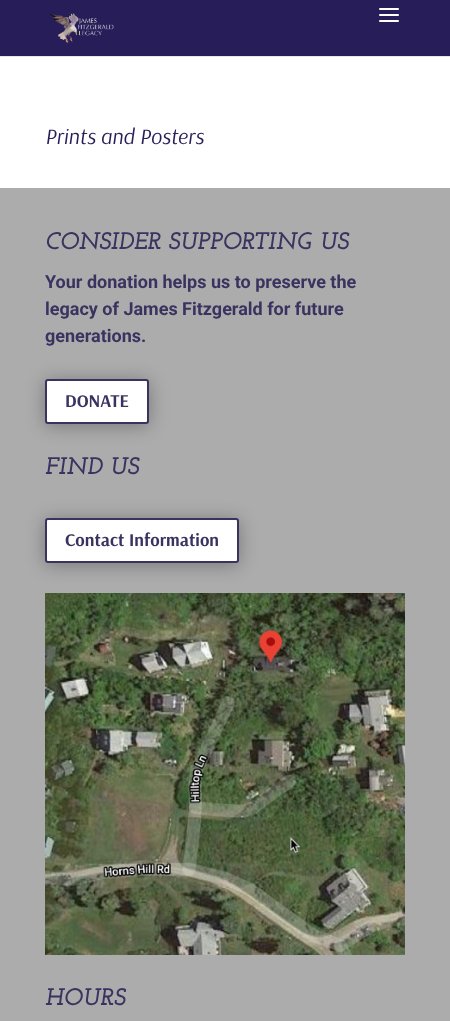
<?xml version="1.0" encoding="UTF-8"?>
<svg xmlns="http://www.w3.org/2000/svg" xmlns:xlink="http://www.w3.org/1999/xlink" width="450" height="1021">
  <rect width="100%" height="100%" fill="#ffffff" />
  <rect y="56" width="450" height="1" fill="#e6e6e6" />
  <rect width="450" height="56" fill="#271d59" />
  <image x="49" y="13" width="65" height="30" xlink:href="image1.png" />
  <image x="379" y="8" width="20" height="14" xlink:href="image2.png" />
  <rect y="188" width="450" height="833" fill="#adacac" />
  <rect x="45" y="381" width="104" height="45" rx="3" fill="#000000" fill-opacity="0.3" filter="blur(9px)" />
  <rect x="46" y="380" width="102" height="43" rx="2" fill="#ffffff" stroke="#3a3360" stroke-width="2" />
  <rect x="45" y="520" width="194" height="45" rx="3" fill="#000000" fill-opacity="0.3" filter="blur(9px)" />
  <rect x="46" y="519" width="192" height="43" rx="2" fill="#ffffff" stroke="#3a3360" stroke-width="2" />
  <image x="45" y="593" width="360" height="362" xlink:href="image3.png" />
  <text x="45" y="144" style="font-family: Arsenal; font-size: 22px; font-style: italic; fill: #271d58">Prints and Posters</text>
  <text x="45" y="249" style="font-family: Josefin Slab; font-size: 24px; font-weight: 100; font-style: italic; fill: #3a3360">CONSIDER SUPPORTING US</text>
  <text x="45" y="288" style="font-family: Roboto; font-size: 18px; font-weight: bold; fill: #3a3360">Your donation helps us to preserve the</text>
  <text x="45" y="315" style="font-family: Roboto; font-size: 18px; font-weight: bold; fill: #3a3360">legacy of James Fitzgerald for future</text>
  <text x="45" y="342" style="font-family: Roboto; font-size: 18px; font-weight: bold; fill: #3a3360">generations.</text>
  <text x="65" y="407" style="font-family: Arsenal; font-size: 18px; font-weight: bold; fill: #3a3360">DONATE</text>
  <text x="45" y="474" style="font-family: Josefin Slab; font-size: 24px; font-weight: 100; font-style: italic; fill: #3a3360">FIND US</text>
  <text x="65" y="546" style="font-family: Arsenal; font-size: 18px; font-weight: bold; fill: #3a3360">Contact Information</text>
  <text x="45" y="1005" style="font-family: Josefin Slab; font-size: 24px; font-weight: 100; font-style: italic; fill: #3a3360">HOURS</text>
</svg>
